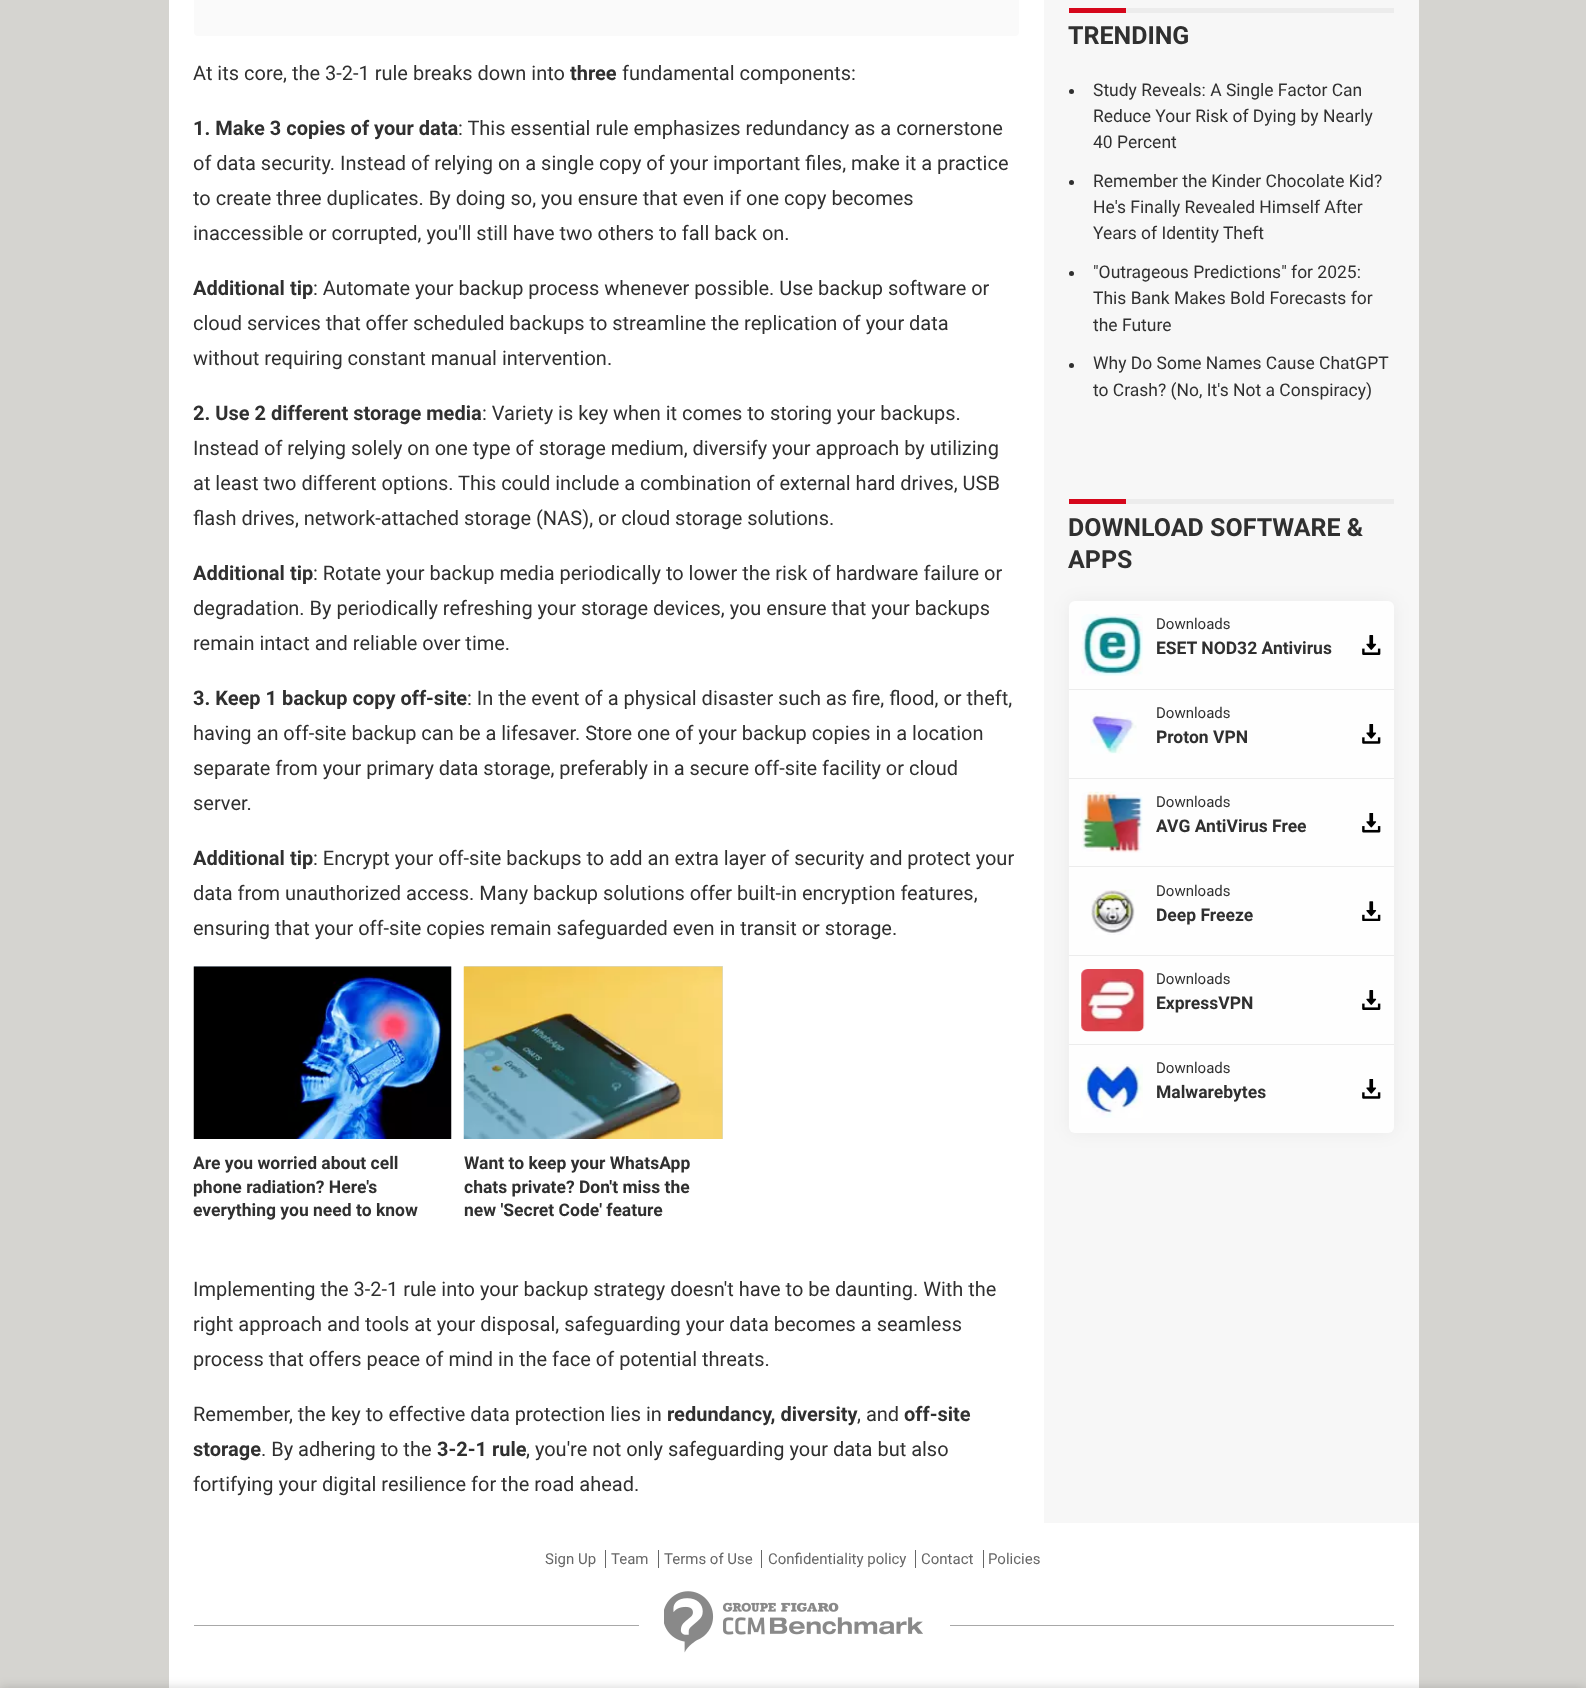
<?xml version="1.0" encoding="UTF-8"?>
<svg xmlns="http://www.w3.org/2000/svg" xmlns:xlink="http://www.w3.org/1999/xlink" width="1586" height="1688">
  <rect width="100%" height="100%" fill="#d5d4d0" />
  <rect x="169" width="875" height="1523" fill="#ffffff" />
  <rect x="194" y="-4" width="825" height="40" rx="4" fill="#fafafa" />
  <rect x="194" y="966" width="257" height="1" fill="#ccddee" />
  <image x="193" y="966" width="259" height="173" xlink:href="image1.png" />
  <rect x="464" y="966" width="259" height="173" fill="#ccddee" />
  <image x="463" y="966" width="260" height="173" xlink:href="image2.png" />
  <rect x="169" y="1523" width="1250" height="165" fill="#ffffff" />
  <rect y="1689" width="1586" height="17" fill="#000000" fill-opacity="0.2" filter="blur(6px)" />
  <rect x="1044" width="375" height="1523" fill="#f7f7f7" />
  <rect x="1126" y="8" width="268" height="5" fill="#ececec" />
  <rect x="1069" y="8" width="57" height="5" fill="#d6071b" />
  <circle cx="1071.5" cy="91.5" r="2.5" fill="#303030" />
  <circle cx="1071.5" cy="182.5" r="2.5" fill="#303030" />
  <circle cx="1071.5" cy="273.5" r="2.5" fill="#303030" />
  <circle cx="1071.5" cy="365.5" r="2.5" fill="#303030" />
  <rect x="1126" y="499" width="268" height="5" fill="#ececec" />
  <rect x="1069" y="499" width="57" height="5" fill="#d6071b" />
  <rect x="1069" y="601" width="325" height="532" rx="6" fill="#000000" fill-opacity="0.05" filter="blur(9px)" />
  <rect x="1069" y="601" width="325" height="532" rx="6" fill="#fefefe" />
  <rect x="1069" y="689" width="325" height="1" fill="#ececec" />
  <image x="1362" y="635" width="19" height="20" xlink:href="image3.png" />
  <image x="1081" y="614" width="62" height="62" xlink:href="image4.png" />
  <rect x="1069" y="778" width="325" height="1" fill="#ececec" />
  <image x="1362" y="724" width="19" height="20" xlink:href="image5.png" />
  <image x="1090" y="712" width="47" height="42" xlink:href="image6.png" />
  <rect x="1069" y="866" width="325" height="1" fill="#ececec" />
  <image x="1362" y="813" width="19" height="20" xlink:href="image7.png" />
  <image x="1081" y="791" width="62" height="62" xlink:href="image8.png" />
  <rect x="1069" y="955" width="325" height="1" fill="#ececec" />
  <image x="1362" y="901" width="19" height="20" xlink:href="image9.png" />
  <image x="1091" y="889" width="44" height="46" xlink:href="image10.png" />
  <rect x="1069" y="1044" width="325" height="1" fill="#ececec" />
  <image x="1362" y="990" width="19" height="20" xlink:href="image3.png" />
  <image x="1081" y="969" width="64" height="63" xlink:href="image11.png" />
  <image x="1362" y="1079" width="19" height="20" xlink:href="image5.png" />
  <image x="1081" y="1064" width="62" height="54" xlink:href="image12.png" />
  <rect x="605" y="1550" width="1" height="18" fill="#666666" />
  <rect x="658" y="1550" width="1" height="18" fill="#666666" />
  <rect x="761" y="1550" width="1" height="18" fill="#666666" />
  <rect x="915" y="1550" width="1" height="18" fill="#666666" />
  <rect x="983" y="1550" width="1" height="18" fill="#666666" />
  <rect x="194" y="1625" width="1200" height="1" fill="#a8a8a8" />
  <rect x="639" y="1625" width="311" height="1" fill="#ffffff" />
  <image x="664" y="1591" width="259" height="62" xlink:href="image13.png" />
  <text x="193" y="80" style="font-family: Roboto; font-size: 20px; fill: #303030">At its core, the 3-2-1 rule breaks down into</text>
  <text x="570" y="80" style="font-family: Roboto; font-size: 20px; font-weight: bold; fill: #303030">three</text>
  <text x="622" y="80" style="font-family: Roboto; font-size: 20px; fill: #303030">fundamental components:</text>
  <text x="193" y="135" style="font-family: Roboto; font-size: 20px; font-weight: bold; fill: #303030">1. Make 3 copies of your data</text>
  <text x="458" y="135" style="font-family: Roboto; font-size: 20px; fill: #303030">: This essential rule emphasizes redundancy as a cornerstone</text>
  <text x="193" y="170" style="font-family: Roboto; font-size: 20px; fill: #303030">of data security. Instead of relying on a single copy of your important files, make it a practice</text>
  <text x="193" y="205" style="font-family: Roboto; font-size: 20px; fill: #303030">to create three duplicates. By doing so, you ensure that even if one copy becomes</text>
  <text x="193" y="240" style="font-family: Roboto; font-size: 20px; fill: #303030">inaccessible or corrupted, you'll still have two others to fall back on.</text>
  <text x="193" y="295" style="font-family: Roboto; font-size: 20px; font-weight: bold; fill: #303030">Additional tip</text>
  <text x="313" y="295" style="font-family: Roboto; font-size: 20px; fill: #303030">: Automate your backup process whenever possible. Use backup software or</text>
  <text x="193" y="330" style="font-family: Roboto; font-size: 20px; fill: #303030">cloud services that offer scheduled backups to streamline the replication of your data</text>
  <text x="193" y="365" style="font-family: Roboto; font-size: 20px; fill: #303030">without requiring constant manual intervention.</text>
  <text x="193" y="420" style="font-family: Roboto; font-size: 20px; font-weight: bold; fill: #303030">2. Use 2 different storage media</text>
  <text x="482" y="420" style="font-family: Roboto; font-size: 20px; fill: #303030">: Variety is key when it comes to storing your backups.</text>
  <text x="193" y="455" style="font-family: Roboto; font-size: 20px; fill: #303030">Instead of relying solely on one type of storage medium, diversify your approach by utilizing</text>
  <text x="193" y="490" style="font-family: Roboto; font-size: 20px; fill: #303030">at least two different options. This could include a combination of external hard drives, USB</text>
  <text x="193" y="525" style="font-family: Roboto; font-size: 20px; fill: #303030">flash drives, network-attached storage (NAS), or cloud storage solutions.</text>
  <text x="193" y="580" style="font-family: Roboto; font-size: 20px; font-weight: bold; fill: #303030">Additional tip</text>
  <text x="313" y="580" style="font-family: Roboto; font-size: 20px; fill: #303030">: Rotate your backup media periodically to lower the risk of hardware failure or</text>
  <text x="193" y="615" style="font-family: Roboto; font-size: 20px; fill: #303030">degradation. By periodically refreshing your storage devices, you ensure that your backups</text>
  <text x="193" y="650" style="font-family: Roboto; font-size: 20px; fill: #303030">remain intact and reliable over time.</text>
  <text x="193" y="705" style="font-family: Roboto; font-size: 20px; font-weight: bold; fill: #303030">3. Keep 1 backup copy off-site</text>
  <text x="467" y="705" style="font-family: Roboto; font-size: 20px; fill: #303030">: In the event of a physical disaster such as fire, flood, or theft,</text>
  <text x="193" y="740" style="font-family: Roboto; font-size: 20px; fill: #303030">having an off-site backup can be a lifesaver. Store one of your backup copies in a location</text>
  <text x="193" y="775" style="font-family: Roboto; font-size: 20px; fill: #303030">separate from your primary data storage, preferably in a secure off-site facility or cloud</text>
  <text x="193" y="810" style="font-family: Roboto; font-size: 20px; fill: #303030">server.</text>
  <text x="193" y="865" style="font-family: Roboto; font-size: 20px; font-weight: bold; fill: #303030">Additional tip</text>
  <text x="313" y="865" style="font-family: Roboto; font-size: 20px; fill: #303030">: Encrypt your off-site backups to add an extra layer of security and protect your</text>
  <text x="193" y="900" style="font-family: Roboto; font-size: 20px; fill: #303030">data from unauthorized access. Many backup solutions offer built-in encryption features,</text>
  <text x="193" y="935" style="font-family: Roboto; font-size: 20px; fill: #303030">ensuring that your off-site copies remain safeguarded even in transit or storage.</text>
  <text x="193" y="1169" style="font-family: Roboto; font-size: 17.5px; font-weight: bold; fill: #303030">Are you worried about cell</text>
  <text x="193" y="1193" style="font-family: Roboto; font-size: 17.5px; font-weight: bold; fill: #303030">phone radiation? Here's</text>
  <text x="193" y="1216" style="font-family: Roboto; font-size: 17.5px; font-weight: bold; fill: #303030">everything you need to know</text>
  <text x="464" y="1169" style="font-family: Roboto; font-size: 17.5px; font-weight: bold; fill: #303030">Want to keep your WhatsApp</text>
  <text x="464" y="1193" style="font-family: Roboto; font-size: 17.5px; font-weight: bold; fill: #303030">chats private? Don't miss the</text>
  <text x="464" y="1216" style="font-family: Roboto; font-size: 17.5px; font-weight: bold; fill: #303030">new 'Secret Code' feature</text>
  <text x="193" y="1296" style="font-family: Roboto; font-size: 20px; fill: #303030">Implementing the 3-2-1 rule into your backup strategy doesn't have to be daunting. With the</text>
  <text x="193" y="1331" style="font-family: Roboto; font-size: 20px; fill: #303030">right approach and tools at your disposal, safeguarding your data becomes a seamless</text>
  <text x="193" y="1366" style="font-family: Roboto; font-size: 20px; fill: #303030">process that offers peace of mind in the face of potential threats.</text>
  <text x="193" y="1421" style="font-family: Roboto; font-size: 20px; fill: #303030">Remember, the key to effective data protection lies in</text>
  <text x="667" y="1421" style="font-family: Roboto; font-size: 20px; font-weight: bold; fill: #303030">redundancy, diversity</text>
  <text x="857" y="1421" style="font-family: Roboto; font-size: 20px; fill: #303030">, and</text>
  <text x="904" y="1421" style="font-family: Roboto; font-size: 20px; font-weight: bold; fill: #303030">off-site</text>
  <text x="193" y="1456" style="font-family: Roboto; font-size: 20px; font-weight: bold; fill: #303030">storage</text>
  <text x="261" y="1456" style="font-family: Roboto; font-size: 20px; fill: #303030">. By adhering to the</text>
  <text x="437" y="1456" style="font-family: Roboto; font-size: 20px; font-weight: bold; fill: #303030">3-2-1 rule</text>
  <text x="526" y="1456" style="font-family: Roboto; font-size: 20px; fill: #303030">, you're not only safeguarding your data but also</text>
  <text x="193" y="1491" style="font-family: Roboto; font-size: 20px; fill: #303030">fortifying your digital resilience for the road ahead.</text>
  <text x="1068" y="44" style="font-family: Roboto; font-size: 25px; font-weight: bold; fill: #303030">TRENDING</text>
  <text x="1093" y="96" style="font-family: Roboto; font-size: 17.5px; fill: #303030">Study Reveals: A Single Factor Can</text>
  <text x="1093" y="122" style="font-family: Roboto; font-size: 17.5px; fill: #303030">Reduce Your Risk of Dying by Nearly</text>
  <text x="1093" y="148" style="font-family: Roboto; font-size: 17.5px; fill: #303030">40 Percent</text>
  <text x="1093" y="187" style="font-family: Roboto; font-size: 17.5px; fill: #303030">Remember the Kinder Chocolate Kid?</text>
  <text x="1093" y="213" style="font-family: Roboto; font-size: 17.5px; fill: #303030">He's Finally Revealed Himself After</text>
  <text x="1093" y="239" style="font-family: Roboto; font-size: 17.5px; fill: #303030">Years of Identity Theft</text>
  <text x="1093" y="278" style="font-family: Roboto; font-size: 17.5px; fill: #303030">"Outrageous Predictions" for 2025:</text>
  <text x="1093" y="304" style="font-family: Roboto; font-size: 17.5px; fill: #303030">This Bank Makes Bold Forecasts for</text>
  <text x="1093" y="331" style="font-family: Roboto; font-size: 17.5px; fill: #303030">the Future</text>
  <text x="1093" y="369" style="font-family: Roboto; font-size: 17.5px; fill: #303030">Why Do Some Names Cause ChatGPT</text>
  <text x="1093" y="396" style="font-family: Roboto; font-size: 17.5px; fill: #303030">to Crash? (No, It's Not a Conspiracy)</text>
  <text x="1068" y="536" style="font-family: Roboto; font-size: 25px; font-weight: bold; fill: #303030">DOWNLOAD SOFTWARE &amp;</text>
  <text x="1068" y="568" style="font-family: Roboto; font-size: 25px; font-weight: bold; fill: #303030">APPS</text>
  <text x="1156" y="629" style="font-family: Roboto; font-size: 15px; fill: #303030">Downloads</text>
  <text x="1156" y="654" style="font-family: Roboto; font-size: 17.5px; font-weight: bold; fill: #303030">ESET NOD32 Antivirus</text>
  <text x="1156" y="718" style="font-family: Roboto; font-size: 15px; fill: #303030">Downloads</text>
  <text x="1156" y="743" style="font-family: Roboto; font-size: 17.5px; font-weight: bold; fill: #303030">Proton VPN</text>
  <text x="1156" y="807" style="font-family: Roboto; font-size: 15px; fill: #303030">Downloads</text>
  <text x="1156" y="832" style="font-family: Roboto; font-size: 17.5px; font-weight: bold; fill: #303030">AVG AntiVirus Free</text>
  <text x="1156" y="896" style="font-family: Roboto; font-size: 15px; fill: #303030">Downloads</text>
  <text x="1156" y="921" style="font-family: Roboto; font-size: 17.5px; font-weight: bold; fill: #303030">Deep Freeze</text>
  <text x="1156" y="984" style="font-family: Roboto; font-size: 15px; fill: #303030">Downloads</text>
  <text x="1156" y="1009" style="font-family: Roboto; font-size: 17.5px; font-weight: bold; fill: #303030">ExpressVPN</text>
  <text x="1156" y="1073" style="font-family: Roboto; font-size: 15px; fill: #303030">Downloads</text>
  <text x="1156" y="1098" style="font-family: Roboto; font-size: 17.5px; font-weight: bold; fill: #303030">Malwarebytes</text>
  <text x="545" y="1564" style="font-family: Roboto; font-size: 15px; fill: #666666">Sign Up</text>
  <text x="611" y="1564" style="font-family: Roboto; font-size: 15px; fill: #666666">Team</text>
  <text x="664" y="1564" style="font-family: Roboto; font-size: 15px; fill: #666666">Terms of Use</text>
  <text x="768" y="1564" style="font-family: Roboto; font-size: 15px; fill: #666666">Confidentiality policy</text>
  <text x="921" y="1564" style="font-family: Roboto; font-size: 15px; fill: #666666">Contact</text>
  <text x="988" y="1564" style="font-family: Roboto; font-size: 15px; fill: #666666">Policies</text>
</svg>
